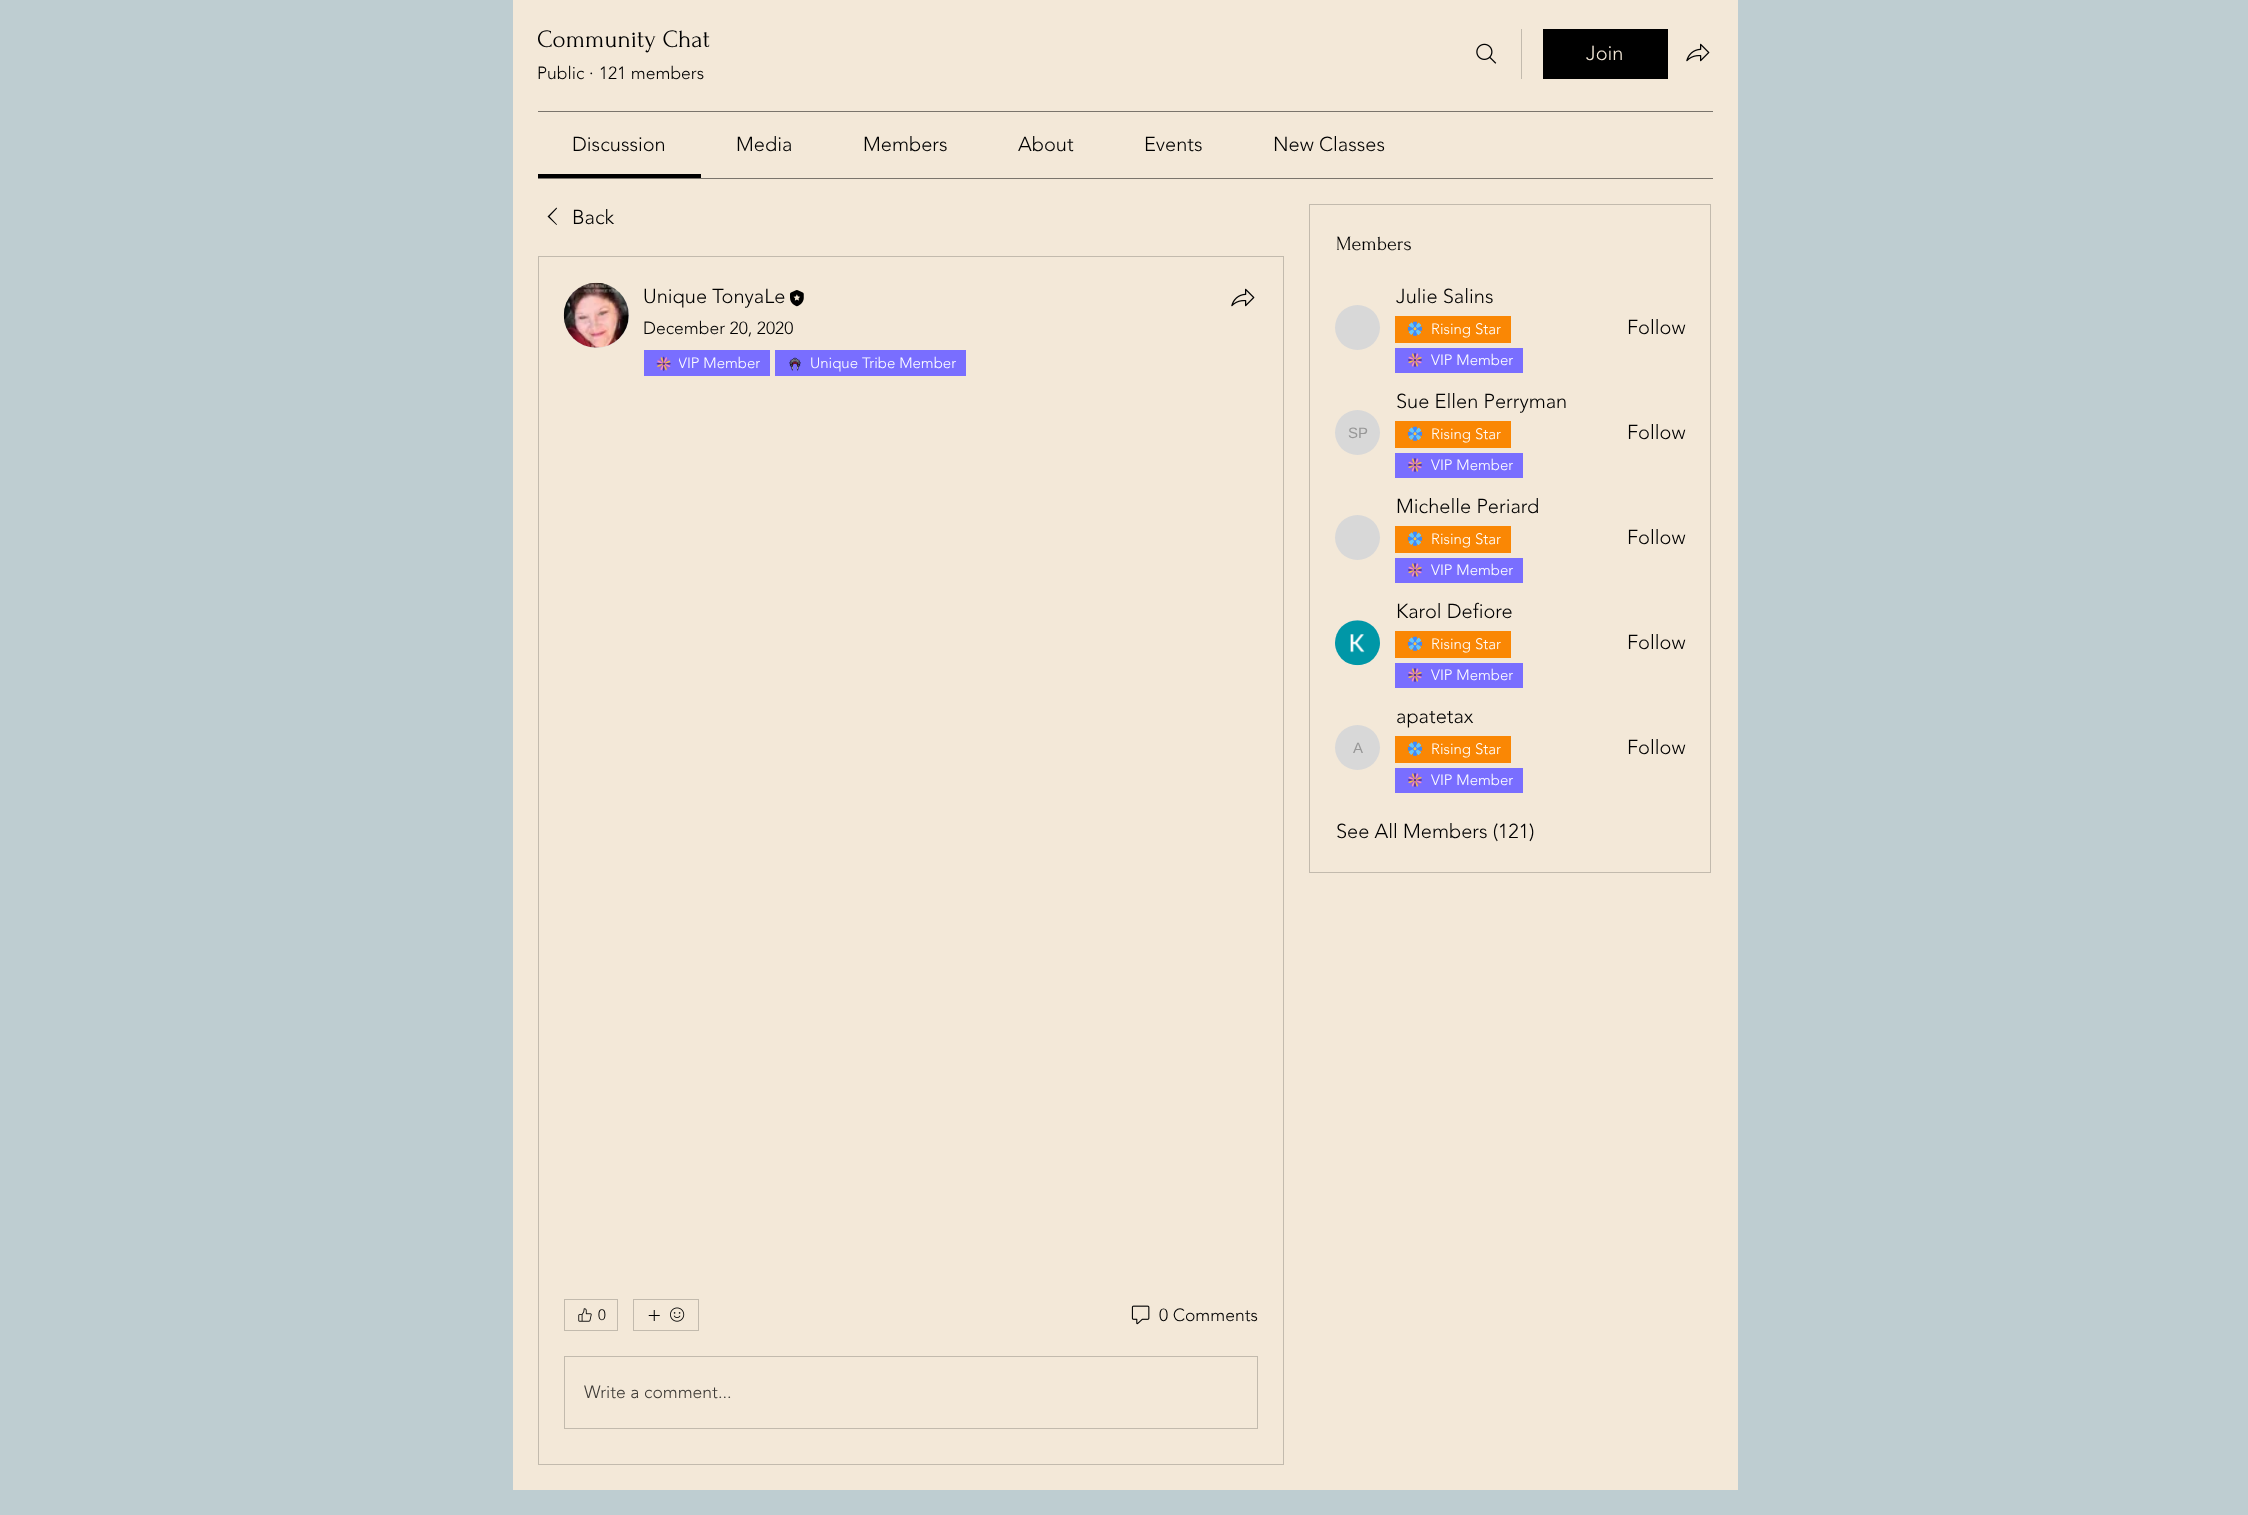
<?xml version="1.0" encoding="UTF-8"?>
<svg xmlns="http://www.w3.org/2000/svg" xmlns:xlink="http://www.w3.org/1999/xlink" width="2248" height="1515">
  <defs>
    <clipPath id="clip1"><rect x="679" y="353" width="81" height="21" /></clipPath>
  </defs>
  <rect width="100%" height="100%" fill="#becdd1" />
  <rect x="513" width="1225" height="1490" fill="#f3e8d8" />
  <image x="1476" y="43" width="21" height="21" xlink:href="image1.png" />
  <rect x="1521" y="29" width="1" height="50" fill="#c2baad" />
  <rect x="1543" y="29" width="125" height="50" fill="#000000" />
  <image x="1686" y="43" width="24" height="19" xlink:href="image2.png" />
  <rect x="538" y="111" width="1175" height="1" fill="#7a746c" />
  <rect x="538" y="178" width="1175" height="1" fill="#7a746c" />
  <rect x="538" y="174" width="163" height="4" fill="#000000" />
  <path d="M 556.5 207.5 l 0.5 1 l -7.5 8 l 7.5 8 l -0.5 0.5 l -9 -8.5 z" fill="#000000" fill-rule="evenodd" />
  <rect x="538.5" y="256.5" width="745" height="1208" fill="none" stroke="#c2baad" />
  <circle cx="596.5" cy="315.5" r="32.5" fill="#d8d8d8" />
  <image x="563" y="282" width="66" height="66" xlink:href="image3.png" />
  <image x="790" y="290" width="14" height="17" xlink:href="image4.png" />
  <rect x="644" y="350" width="126" height="26" fill="#796eff" />
  <image x="656" y="356" width="15" height="15" xlink:href="image5.png" />
  <rect x="775" y="350" width="191" height="26" fill="#796eff" />
  <image x="789" y="357" width="12" height="14" xlink:href="image6.png" />
  <image x="1231" y="288" width="24" height="19" xlink:href="image2.png" />
  <rect x="564.5" y="1299.5" width="53" height="31" fill="none" stroke="#c2baad" />
  <image x="578" y="1308" width="14" height="14" xlink:href="image7.png" />
  <rect x="633.5" y="1299.5" width="65" height="31" fill="none" stroke="#c2baad" />
  <image x="648" y="1310" width="12" height="11" xlink:href="image8.png" />
  <image x="670" y="1307" width="15" height="15" xlink:href="image9.png" />
  <image x="1131" y="1305" width="19" height="20" xlink:href="image10.png" />
  <rect x="564.5" y="1356.5" width="693" height="72" fill="none" stroke="#c2baad" />
  <rect x="1309.5" y="204.5" width="401" height="668" fill="none" stroke="#c2baad" />
  <circle cx="1357.5" cy="327.5" r="22.5" fill="#d8d8d8" />
  <rect x="1395" y="316" width="116" height="27" fill="#fa8704" />
  <image x="1407" y="321" width="16" height="15" xlink:href="image11.png" />
  <rect x="1395" y="348" width="128" height="25" fill="#796eff" />
  <image x="1408" y="353" width="14" height="14" xlink:href="image12.png" />
  <circle cx="1357.5" cy="432.5" r="22.5" fill="#d8d8d8" />
  <rect x="1395" y="421" width="116" height="27" fill="#fa8704" />
  <image x="1407" y="426" width="16" height="15" xlink:href="image11.png" />
  <rect x="1395" y="453" width="128" height="25" fill="#796eff" />
  <image x="1408" y="458" width="14" height="14" xlink:href="image12.png" />
  <circle cx="1357.5" cy="537.5" r="22.5" fill="#d8d8d8" />
  <rect x="1395" y="526" width="116" height="27" fill="#fa8704" />
  <image x="1407" y="531" width="16" height="15" xlink:href="image11.png" />
  <rect x="1395" y="558" width="128" height="25" fill="#796eff" />
  <image x="1408" y="563" width="14" height="14" xlink:href="image12.png" />
  <circle cx="1357.5" cy="642.5" r="22.5" fill="#d8d8d8" />
  <image x="1335" y="620" width="45" height="46" xlink:href="image13.png" />
  <rect x="1395" y="631" width="116" height="27" fill="#fa8704" />
  <image x="1407" y="636" width="16" height="15" xlink:href="image11.png" />
  <rect x="1395" y="663" width="128" height="25" fill="#796eff" />
  <image x="1408" y="668" width="14" height="14" xlink:href="image12.png" />
  <circle cx="1357.5" cy="747.5" r="22.5" fill="#d8d8d8" />
  <rect x="1395" y="736" width="116" height="27" fill="#fa8704" />
  <image x="1407" y="741" width="16" height="15" xlink:href="image11.png" />
  <rect x="1395" y="768" width="128" height="25" fill="#796eff" />
  <image x="1408" y="773" width="14" height="14" xlink:href="image12.png" />
  <text x="537" y="47" style="font-family: Forum; font-size: 25px; fill: #000000">Community Chat</text>
  <text x="537" y="79" style="font-family: 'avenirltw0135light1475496'; font-size: 17.5px; font-weight: 300; fill: #000000">Public</text>
  <text x="589" y="79" style="font-family: 'avenirltw0135light1475496'; font-size: 17.5px; font-weight: 300; fill: #000000">·</text>
  <text x="599" y="79" style="font-family: 'avenirltw0135light1475496'; font-size: 17.5px; font-weight: 300; fill: #000000">121 members</text>
  <text x="1586" y="60" style="font-family: 'avenirltw0135light1475496'; font-size: 20px; font-weight: 300; fill: #f3e8d8">Join</text>
  <text x="572" y="151" style="font-family: 'avenirltw0135light1475496'; font-size: 20px; font-weight: 300; fill: #000000">Discussion</text>
  <text x="736" y="151" style="font-family: 'avenirltw0135light1475496'; font-size: 20px; font-weight: 300; fill: #000000">Media</text>
  <text x="863" y="151" style="font-family: 'avenirltw0135light1475496'; font-size: 20px; font-weight: 300; fill: #000000">Members</text>
  <text x="1018" y="151" style="font-family: 'avenirltw0135light1475496'; font-size: 20px; font-weight: 300; fill: #000000">About</text>
  <text x="1144" y="151" style="font-family: 'avenirltw0135light1475496'; font-size: 20px; font-weight: 300; fill: #000000">Events</text>
  <text x="1273" y="151" style="font-family: 'avenirltw0135light1475496'; font-size: 20px; font-weight: 300; fill: #000000">New Classes</text>
  <text x="572" y="224" style="font-family: 'avenirltw0135light1475496'; font-size: 20px; font-weight: 300; fill: #000000">Back</text>
  <text x="643" y="303" style="font-family: 'avenirltw0135light1475496'; font-size: 20px; font-weight: 300; fill: #000000">Unique TonyaLe</text>
  <text x="643" y="334" style="font-family: 'avenirltw0135light1475496'; font-size: 17.5px; font-weight: 300; fill: #000000">December 20, 2020</text>
  <g clip-path="url(#clip1)">
    <text x="678" y="368" style="font-family: 'avenirltw0135light1475496'; font-size: 15px; font-weight: 300; fill: #ffffff">VIP Member</text>
  </g>
  <text x="810" y="368" style="font-family: 'avenirltw0135light1475496'; font-size: 15px; font-weight: 300; fill: #ffffff">Unique Tribe Member</text>
  <text x="598" y="1320" style="font-family: 'avenirltw0135light1475496'; font-size: 15px; font-weight: 300; fill: #000000">0</text>
  <text x="1159" y="1321" style="font-family: 'avenirltw0135light1475496'; font-size: 17.5px; font-weight: 300; fill: #000000">0 Comments</text>
  <text x="584" y="1398" style="font-family: 'avenirltw0135light1475496'; font-size: 17.5px; font-weight: 300; fill: #3d3a36">Write a comment...</text>
  <text x="1336" y="250" style="font-family: Forum; font-size: 20px; fill: #000000">Members</text>
  <text x="1396" y="303" style="font-family: 'avenirltw0135light1475496'; font-size: 20px; font-weight: 300; fill: #000000">Julie Salins</text>
  <text x="1431" y="334" style="font-family: 'avenirltw0135light1475496'; font-size: 15px; font-weight: 300; fill: #ffffff">Rising Star</text>
  <text x="1431" y="365" style="font-family: 'avenirltw0135light1475496'; font-size: 15px; font-weight: 300; fill: #ffffff">VIP Member</text>
  <text x="1627" y="334" style="font-family: 'avenirltw0135light1475496'; font-size: 20px; font-weight: 300; fill: #000000">Follow</text>
  <text x="1348" y="438" style="font-family: Liberation Sans; font-size: 15px; fill: #979797">SP</text>
  <text x="1396" y="408" style="font-family: 'avenirltw0135light1475496'; font-size: 20px; font-weight: 300; fill: #000000">Sue Ellen Perryman</text>
  <text x="1431" y="439" style="font-family: 'avenirltw0135light1475496'; font-size: 15px; font-weight: 300; fill: #ffffff">Rising Star</text>
  <text x="1431" y="470" style="font-family: 'avenirltw0135light1475496'; font-size: 15px; font-weight: 300; fill: #ffffff">VIP Member</text>
  <text x="1627" y="439" style="font-family: 'avenirltw0135light1475496'; font-size: 20px; font-weight: 300; fill: #000000">Follow</text>
  <text x="1396" y="513" style="font-family: 'avenirltw0135light1475496'; font-size: 20px; font-weight: 300; fill: #000000">Michelle Periard</text>
  <text x="1431" y="544" style="font-family: 'avenirltw0135light1475496'; font-size: 15px; font-weight: 300; fill: #ffffff">Rising Star</text>
  <text x="1431" y="575" style="font-family: 'avenirltw0135light1475496'; font-size: 15px; font-weight: 300; fill: #ffffff">VIP Member</text>
  <text x="1627" y="544" style="font-family: 'avenirltw0135light1475496'; font-size: 20px; font-weight: 300; fill: #000000">Follow</text>
  <text x="1396" y="618" style="font-family: 'avenirltw0135light1475496'; font-size: 20px; font-weight: 300; fill: #000000">Karol Defiore</text>
  <text x="1431" y="649" style="font-family: 'avenirltw0135light1475496'; font-size: 15px; font-weight: 300; fill: #ffffff">Rising Star</text>
  <text x="1431" y="680" style="font-family: 'avenirltw0135light1475496'; font-size: 15px; font-weight: 300; fill: #ffffff">VIP Member</text>
  <text x="1627" y="649" style="font-family: 'avenirltw0135light1475496'; font-size: 20px; font-weight: 300; fill: #000000">Follow</text>
  <text x="1353" y="753" style="font-family: Liberation Sans; font-size: 15px; fill: #979797">A</text>
  <text x="1396" y="723" style="font-family: 'avenirltw0135light1475496'; font-size: 20px; font-weight: 300; fill: #000000">apatetax</text>
  <text x="1431" y="754" style="font-family: 'avenirltw0135light1475496'; font-size: 15px; font-weight: 300; fill: #ffffff">Rising Star</text>
  <text x="1431" y="785" style="font-family: 'avenirltw0135light1475496'; font-size: 15px; font-weight: 300; fill: #ffffff">VIP Member</text>
  <text x="1627" y="754" style="font-family: 'avenirltw0135light1475496'; font-size: 20px; font-weight: 300; fill: #000000">Follow</text>
  <text x="1336" y="838" style="font-family: 'avenirltw0135light1475496'; font-size: 20px; font-weight: 300; fill: #000000">See All Members (121)</text>
</svg>
